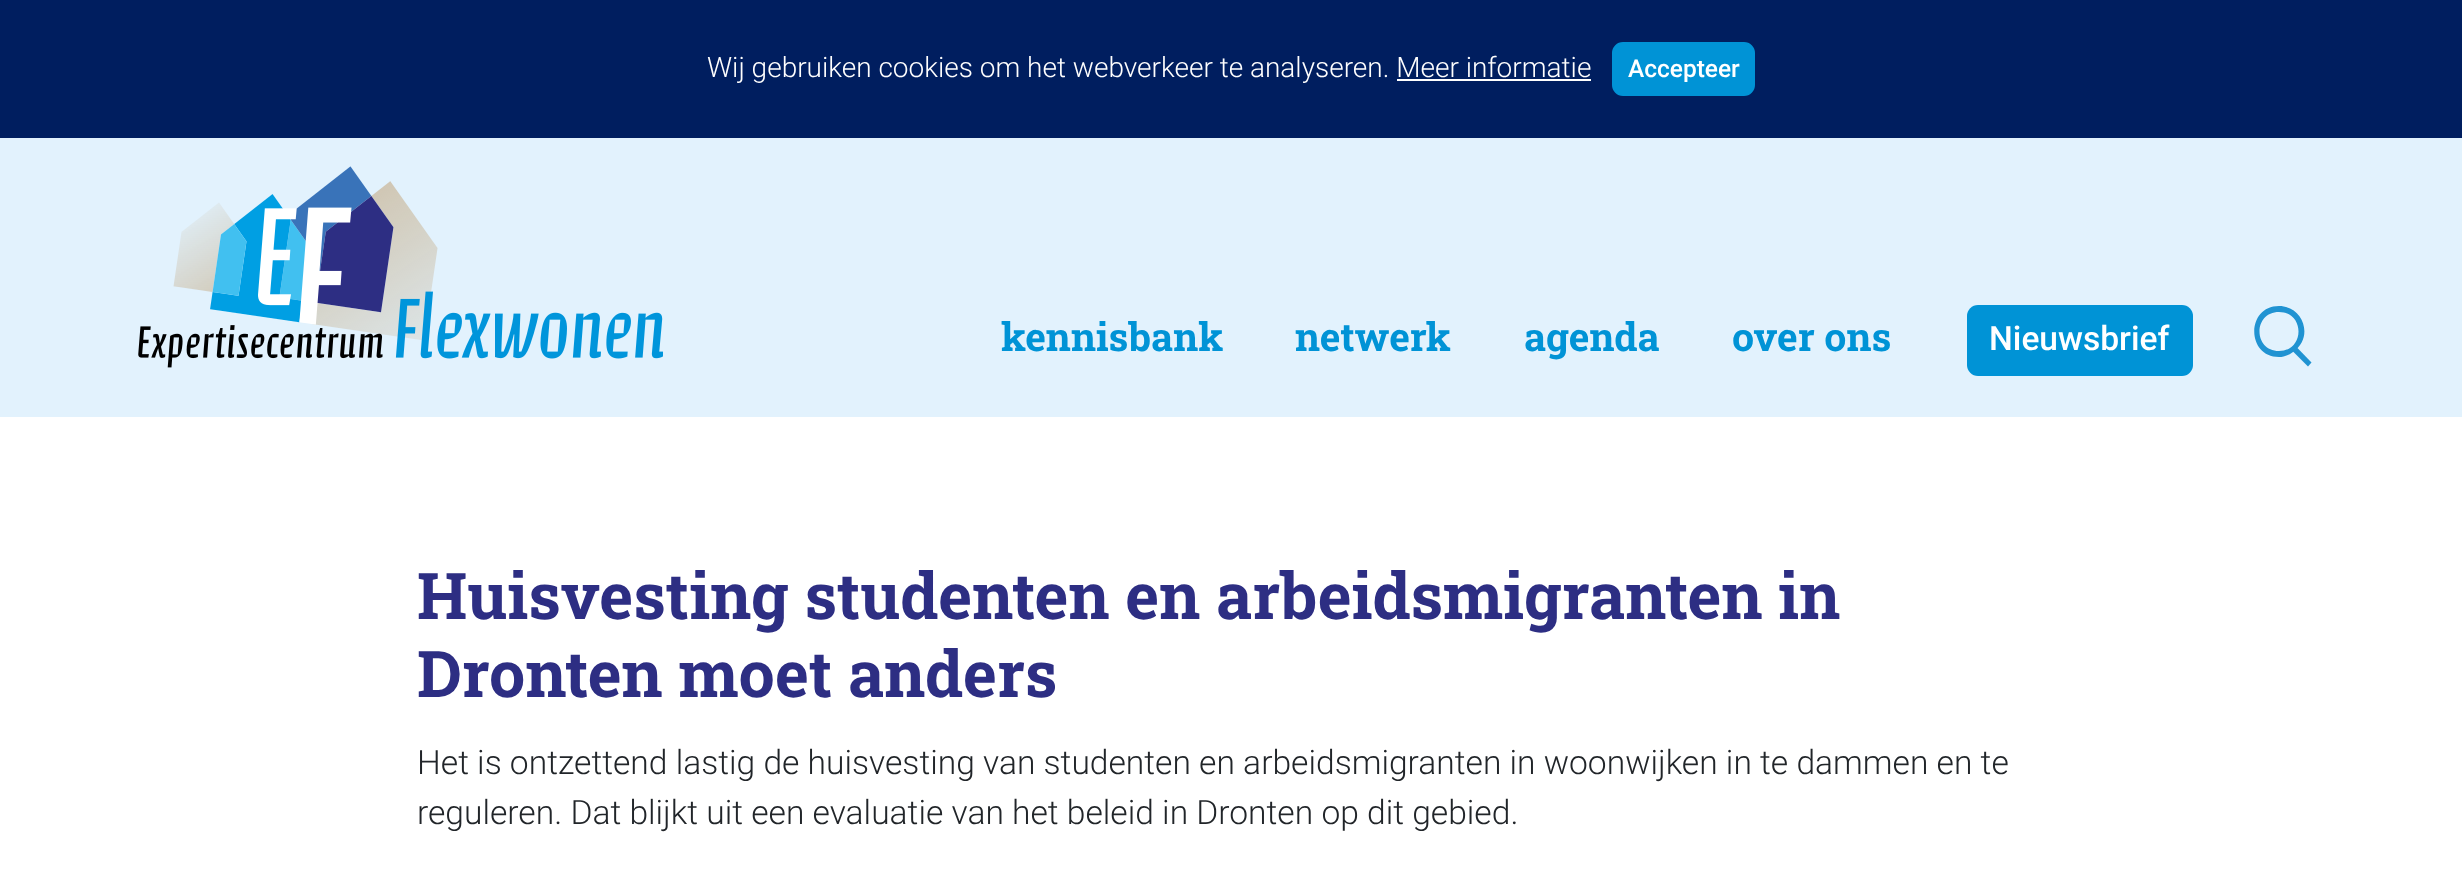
<?xml version="1.0" encoding="UTF-8"?>
<svg xmlns="http://www.w3.org/2000/svg" xmlns:xlink="http://www.w3.org/1999/xlink" width="2462" height="891">
  <rect width="100%" height="100%" fill="#ffffff" />
  <rect width="2462" height="138" fill="#001e5f" />
  <rect x="1613" y="43" width="141" height="52" rx="10" fill="#0093d6" stroke="#0093d6" stroke-width="2" />
  <rect x="1397" y="79" width="194" height="2" fill="#ffffff" />
  <rect y="138" width="2462" height="279" fill="#e2f2fd" />
  <image x="138" y="166" width="525" height="202" xlink:href="image1.png" />
  <rect x="1967" y="305" width="226" height="71" rx="11" fill="#0093d6" />
  <path d="M 2279 357 c -33 0 -33 -51 0 -51 c 25 0 35 32 14 46 c -4 3 -9 5 -14 5 z m 0 -45 c -26 0 -26 39 0 39 c 26 0 26 -39 0 -39 z" fill="#2093d2" />
  <path d="M 2292 350.5 l 4 -4 l 15.5 16 l -3.5 4 z" fill="#2093d2" />
  <text x="707" y="77" style="font-family: Roboto; font-size: 28px; font-weight: 300; fill: #ffffff">Wij gebruiken cookies om het webverkeer te analyseren. Meer informatie</text>
  <text x="1628" y="77" style="font-family: Roboto; font-size: 24.5px; font-weight: 500; fill: #ffffff">Accepteer</text>
  <text x="1001" y="351" style="font-family: Roboto Slab; font-size: 39.25px; font-weight: bold; fill: #0093d6">kennisbank</text>
  <text x="1295" y="351" style="font-family: Roboto Slab; font-size: 39.25px; font-weight: bold; fill: #0093d6">netwerk</text>
  <text x="1524" y="351" style="font-family: Roboto Slab; font-size: 39.25px; font-weight: bold; fill: #0093d6">agenda</text>
  <text x="1732" y="351" style="font-family: Roboto Slab; font-size: 39.25px; font-weight: bold; fill: #0093d6">over ons</text>
  <text x="1989" y="350" style="font-family: Roboto; font-size: 33.6px; font-weight: 500; fill: #ffffff">Nieuwsbrief</text>
  <text x="417" y="619" style="font-family: Roboto Slab; font-size: 64.4px; font-weight: bold; fill: #2d2e83">Huisvesting studenten en arbeidsmigranten in</text>
  <text x="417" y="697" style="font-family: Roboto Slab; font-size: 64.4px; font-weight: bold; fill: #2d2e83">Dronten moet anders</text>
  <text x="417" y="774" style="font-family: Roboto; font-size: 33.6px; font-weight: 300; fill: #212529">Het is ontzettend lastig de huisvesting van studenten en arbeidsmigranten in woonwijken in te dammen en te</text>
  <text x="417" y="824" style="font-family: Roboto; font-size: 33.6px; font-weight: 300; fill: #212529">reguleren. Dat blijkt uit een evaluatie van het beleid in Dronten op dit gebied.</text>
</svg>
